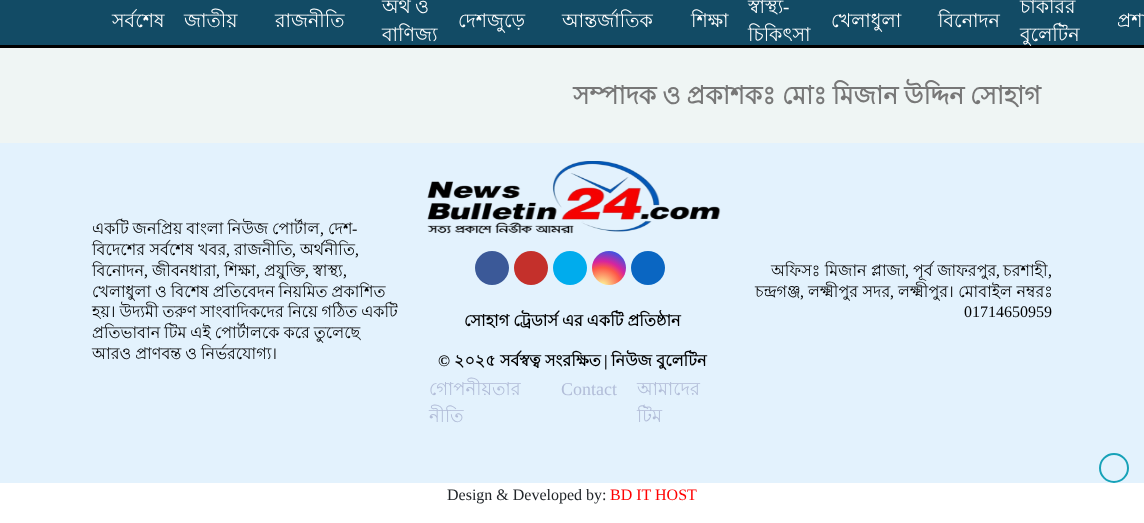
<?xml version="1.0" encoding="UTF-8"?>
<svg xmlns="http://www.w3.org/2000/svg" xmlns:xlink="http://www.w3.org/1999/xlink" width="1144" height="523">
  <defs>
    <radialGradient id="g1" gradientUnits="userSpaceOnUse" cx="602" cy="287" r="43"><stop offset="0" stop-color="#fdf497" /><stop offset="0.05" stop-color="#fdf497" /><stop offset="0.45" stop-color="#fd5949" /><stop offset="0.6" stop-color="#d6249f" /><stop offset="0.9" stop-color="#285aeb" /></radialGradient>
  </defs>
  <rect width="100%" height="100%" fill="#ffffff" />
  <rect width="1144" height="45" fill="#124b65" />
  <rect y="143" width="1144" height="340" fill="#e3f2fd" />
  <circle cx="1114" cy="468" r="14" fill="none" stroke="#17a2b8" stroke-width="2" />
  <rect y="48" width="1144" height="95" fill="#eff5f4" />
  <rect y="45" width="1144" height="3" fill="#000000" />
  <image x="427" y="161" width="294" height="73" xlink:href="image1.png" />
  <circle cx="492" cy="268" r="17" fill="#3b5998" />
  <circle cx="531" cy="268" r="17" fill="#c4302b" />
  <circle cx="570" cy="268" r="17" fill="#00aced" />
  <circle cx="609" cy="268" r="17" fill="url(#g1)" />
  <circle cx="648" cy="268" r="17" fill="#0a66c2" />
  <text x="112" y="27" style="font-family: Lohit Bengali; font-size: 19px; fill: #ffffff">সর্বশেষ</text>
  <text x="184" y="27" style="font-family: Lohit Bengali; font-size: 19px; fill: #ffffff">জাতীয়</text>
  <text x="275" y="27" style="font-family: Lohit Bengali; font-size: 19px; fill: #ffffff">রাজনীতি</text>
  <text x="382" y="13" word-spacing="-1" style="font-family: Lohit Bengali; font-size: 19px; fill: #ffffff">অর্থ ও</text>
  <text x="382" y="41" style="font-family: Lohit Bengali; font-size: 19px; fill: #ffffff">বাণিজ্য</text>
  <text x="458" y="27" style="font-family: Lohit Bengali; font-size: 19px; fill: #ffffff">দেশজুড়ে</text>
  <text x="562" y="27" style="font-family: Lohit Bengali; font-size: 19px; fill: #ffffff">আন্তর্জাতিক</text>
  <text x="691" y="27" style="font-family: Lohit Bengali; font-size: 19px; fill: #ffffff">শিক্ষা</text>
  <text x="748" y="13" style="font-family: Lohit Bengali; font-size: 19px; fill: #ffffff">স্বাস্থ্য</text>
  <text x="783" y="13" style="font-family: Liberation Serif; font-size: 19px; fill: #ffffff">-</text>
  <text x="748" y="41" style="font-family: Lohit Bengali; font-size: 19px; fill: #ffffff">চিকিৎসা</text>
  <text x="831" y="27" style="font-family: Lohit Bengali; font-size: 19px; fill: #ffffff">খেলাধুলা</text>
  <text x="938" y="27" style="font-family: Lohit Bengali; font-size: 19px; fill: #ffffff">বিনোদন</text>
  <text x="1020" y="13" style="font-family: Lohit Bengali; font-size: 19px; fill: #ffffff">চাকরির</text>
  <text x="1020" y="41" style="font-family: Lohit Bengali; font-size: 19px; fill: #ffffff">বুলেটিন</text>
  <text x="1117" y="27" style="font-family: Lohit Bengali; font-size: 19px; fill: #ffffff">প্রশা</text>
  <text x="573" y="104" word-spacing="-1" style="font-family: Lohit Bengali; font-size: 25px; font-weight: bold; fill: #777777">সম্পাদক ও প্রকাশকঃ</text>
  <text x="782" y="104" word-spacing="-1" style="font-family: Lohit Bengali; font-size: 25px; font-weight: bold; fill: #777777">মোঃ মিজান উদ্দিন সোহাগ</text>
  <text x="92" y="234" word-spacing="-0.5" style="font-family: Lohit Bengali; font-size: 16px; fill: #000000">একটি জনপ্রিয় বাংলা নিউজ পোর্টাল</text>
  <text x="328" y="234" style="font-family: Lohit Bengali; font-size: 16px; fill: #000000">দেশ</text>
  <text x="352" y="234" style="font-family: Liberation Serif; font-size: 16px; fill: #000000">-</text>
  <text x="320" y="234" style="font-family: Liberation Serif; font-size: 16px; fill: #000000">,</text>
  <text x="92" y="255" style="font-family: Lohit Bengali; font-size: 16px; fill: #000000">বিদেশের সর্বশেষ খবর</text>
  <text x="226" y="255" style="font-family: Liberation Serif; font-size: 16px; fill: #000000">,</text>
  <text x="234" y="255" style="font-family: Lohit Bengali; font-size: 16px; fill: #000000">রাজনীতি</text>
  <text x="292" y="255" style="font-family: Liberation Serif; font-size: 16px; fill: #000000">,</text>
  <text x="300" y="255" style="font-family: Lohit Bengali; font-size: 16px; fill: #000000">অর্থনীতি</text>
  <text x="355" y="255" style="font-family: Liberation Serif; font-size: 16px; fill: #000000">,</text>
  <text x="92" y="276" style="font-family: Lohit Bengali; font-size: 16px; fill: #000000">বিনোদন</text>
  <text x="152" y="276" style="font-family: Lohit Bengali; font-size: 16px; fill: #000000">জীবনধারা</text>
  <text x="224" y="276" style="font-family: Lohit Bengali; font-size: 16px; fill: #000000">শিক্ষা</text>
  <text x="264" y="276" style="font-family: Lohit Bengali; font-size: 16px; fill: #000000">প্রযুক্তি</text>
  <text x="313" y="276" style="font-family: Lohit Bengali; font-size: 16px; fill: #000000">স্বাস্থ্য</text>
  <text x="144" y="276" style="font-family: Liberation Serif; font-size: 16px; fill: #000000">,</text>
  <text x="216" y="276" style="font-family: Liberation Serif; font-size: 16px; fill: #000000">,</text>
  <text x="256" y="276" style="font-family: Liberation Serif; font-size: 16px; fill: #000000">,</text>
  <text x="305" y="276" style="font-family: Liberation Serif; font-size: 16px; fill: #000000">,</text>
  <text x="343" y="276" style="font-family: Liberation Serif; font-size: 16px; fill: #000000">,</text>
  <text x="92" y="297" word-spacing="-0.5" style="font-family: Lohit Bengali; font-size: 16px; fill: #000000">খেলাধুলা ও বিশেষ প্রতিবেদন নিয়মিত প্রকাশিত</text>
  <text x="92" y="317" word-spacing="-0.5" style="font-family: Lohit Bengali; font-size: 16px; fill: #000000">হয়। উদ্যমী তরুণ সাংবাদিকদের নিয়ে গঠিত একটি</text>
  <text x="92" y="338" word-spacing="-0.5" style="font-family: Lohit Bengali; font-size: 16px; fill: #000000">প্রতিভাবান টিম এই পোর্টালকে করে তুলেছে</text>
  <text x="92" y="359" word-spacing="-0.5" style="font-family: Lohit Bengali; font-size: 16px; fill: #000000">আরও প্রাণবন্ত ও নির্ভরযোগ্য।</text>
  <text x="771" y="276" style="font-family: Lohit Bengali; font-size: 16px; fill: #000000">অফিসঃ মিজান প্লাজা</text>
  <text x="905" y="276" style="font-family: Liberation Serif; font-size: 16px; fill: #000000">,</text>
  <text x="913" y="276" style="font-family: Lohit Bengali; font-size: 16px; fill: #000000">পূর্ব জাফরপুর</text>
  <text x="996" y="276" style="font-family: Liberation Serif; font-size: 16px; fill: #000000">,</text>
  <text x="1003" y="276" style="font-family: Lohit Bengali; font-size: 16px; fill: #000000">চরশাহী</text>
  <text x="1048" y="276" style="font-family: Liberation Serif; font-size: 16px; fill: #000000">,</text>
  <text x="755" y="297" style="font-family: Lohit Bengali; font-size: 16px; fill: #000000">চন্দ্রগঞ্জ</text>
  <text x="800" y="297" style="font-family: Liberation Serif; font-size: 16px; fill: #000000">,</text>
  <text x="808" y="297" style="font-family: Lohit Bengali; font-size: 16px; fill: #000000">লক্ষ্মীপুর সদর</text>
  <text x="890" y="297" style="font-family: Liberation Serif; font-size: 16px; fill: #000000">,</text>
  <text x="898" y="297" style="font-family: Lohit Bengali; font-size: 16px; fill: #000000">লক্ষ্মীপুর। মোবাইল নম্বরঃ</text>
  <text x="964" y="317" style="font-family: Liberation Serif; font-size: 16px; fill: #000000">01714650959</text>
  <text x="464" y="326" word-spacing="-0.5" style="font-family: Lohit Bengali; font-size: 16px; font-weight: bold; fill: #000000">সোহাগ ট্রেডার্স এর একটি প্রতিষ্ঠান</text>
  <text x="438" y="366" style="font-family: Liberation Serif; font-size: 16px; font-weight: bold; fill: #000000">©</text>
  <text x="454" y="366" style="font-family: Lohit Bengali; font-size: 16px; font-weight: bold; fill: #000000">২০২৫ সর্বস্বত্ব সংরক্ষিত</text>
  <text x="604" y="366" style="font-family: Liberation Serif; font-size: 16px; font-weight: bold; fill: #000000">|</text>
  <text x="611" y="366" style="font-family: Lohit Bengali; font-size: 16px; font-weight: bold; fill: #000000">নিউজ বুলেটিন</text>
  <text x="429" y="395" style="font-family: Lohit Bengali; font-size: 18px; fill: #b2bdd8">গোপনীয়তার</text>
  <text x="429" y="422" style="font-family: Lohit Bengali; font-size: 18px; fill: #b2bdd8">নীতি</text>
  <text x="561" y="395" style="font-family: Liberation Serif; font-size: 18px; fill: #b2bdd8">Contact</text>
  <text x="637" y="395" style="font-family: Lohit Bengali; font-size: 18px; fill: #b2bdd8">আমাদের</text>
  <text x="637" y="422" style="font-family: Lohit Bengali; font-size: 18px; fill: #b2bdd8">টিম</text>
  <text x="447" y="500" style="font-family: Liberation Serif; font-size: 16px; fill: #212529">Design &amp; Developed by:</text>
  <text x="610" y="500" style="font-family: Liberation Serif; font-size: 16px; fill: #ff0000">BD IT HOST</text>
</svg>
